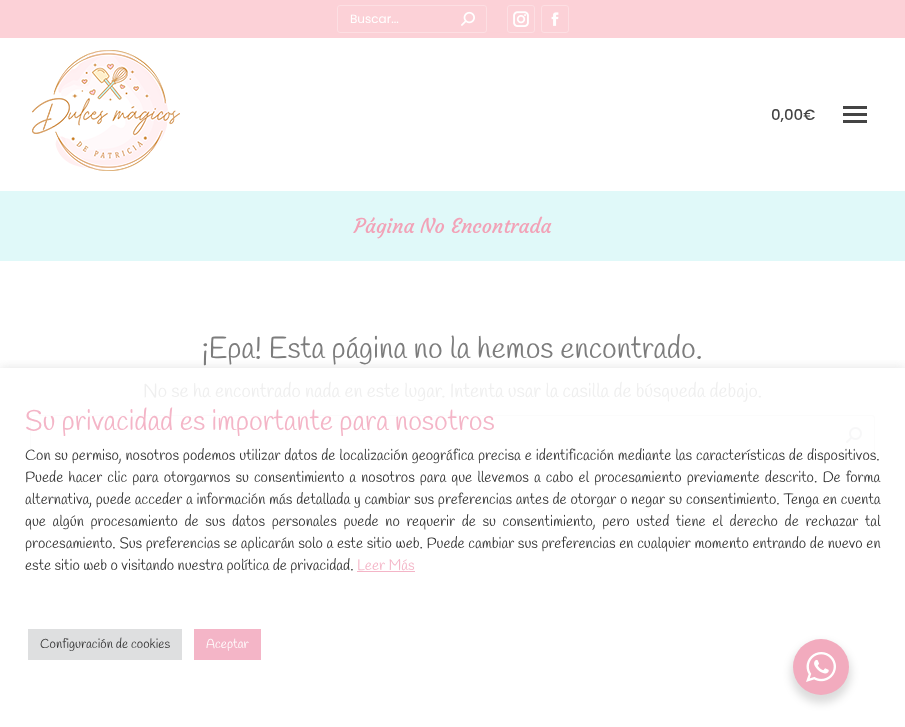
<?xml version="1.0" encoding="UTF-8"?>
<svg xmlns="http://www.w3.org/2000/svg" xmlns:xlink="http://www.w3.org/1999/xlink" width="905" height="727">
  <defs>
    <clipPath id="clip1"><rect x="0" y="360" width="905" height="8" /></clipPath>
  </defs>
  <rect width="100%" height="100%" fill="#ffffff" />
  <rect width="905" height="38" fill="#fcd1d7" />
  <rect x="337.5" y="5.5" width="149" height="27" rx="2.5" fill="none" stroke="#fddfe3" />
  <image x="461" y="11" width="14" height="15" xlink:href="image1.png" />
  <rect x="507.5" y="5.5" width="27" height="27" rx="2.5" fill="none" stroke="#fddfe3" />
  <image x="513" y="11" width="16" height="16" xlink:href="image2.png" />
  <rect x="541.5" y="5.5" width="27" height="27" rx="2.5" fill="none" stroke="#fddfe3" />
  <image x="551" y="12" width="8" height="14" xlink:href="image3.png" />
  <image x="32" y="50" width="148" height="121" xlink:href="image4.png" />
  <rect x="843" y="106" width="24" height="3" fill="#444444" />
  <rect x="843" y="113" width="24" height="3" fill="#444444" />
  <rect x="843" y="120" width="24" height="3" fill="#444444" />
  <rect y="191" width="905" height="70" fill="#e0f9f9" />
  <rect x="30.5" y="415.5" width="844" height="39" rx="2.5" fill="none" stroke="#fcfcfc" />
  <image x="846" y="427" width="16" height="16" xlink:href="image5.png" />
  <g clip-path="url(#clip1)">
    <rect y="367" width="905" height="359" fill="#acabab" fill-opacity="0.3" filter="blur(5px)" />
  </g>
  <rect x="357" y="571" width="58" height="1" fill="#f4b5c7" />
  <rect x="28" y="629" width="154" height="31" fill="#dedfe0" />
  <rect x="194" y="629" width="67" height="31" fill="#f4b5c7" />
  <rect x="791" y="643" width="60" height="60" rx="30" fill="#000000" fill-opacity="0.14" filter="blur(4px)" />
  <circle cx="821" cy="667" r="28" fill="#f2abbe" />
  <image x="806" y="652" width="30" height="30" xlink:href="image6.png" />
  <text x="350" y="23" style="font-family: Poppins; font-size: 12px; fill: #ffffff">Buscar...</text>
  <text x="771" y="120" style="font-family: Poppins; font-size: 15px; font-weight: 500; fill: #444444">0,00€</text>
  <text x="354" y="233" style="font-family: Courgette; font-size: 20px; fill: #f2a2b7">Página No Encontrada</text>
  <text x="202" y="358" style="font-family: Handlee; font-size: 30px; fill: #7c7c7c">¡Epa! Esta página no la hemos encontrado.</text>
  <text x="143" y="397" style="font-family: Handlee; font-size: 19px; fill: #efefef">No se ha encontrado nada en este lugar. Intenta usar la casilla de búsqueda debajo.</text>
  <text x="25" y="430" style="font-family: Handlee; font-size: 28px; fill: #f4b5c7">Su privacidad es importante para nosotros</text>
  <text x="25" y="460" word-spacing="0.5" style="font-family: Handlee; font-size: 15px; fill: #333333">Con su permiso, nosotros podemos utilizar datos de localización geográfica precisa e identificación mediante las características de dispositivos.</text>
  <text x="25" y="482" word-spacing="1.7" style="font-family: Handlee; font-size: 15px; fill: #333333">Puede hacer clic para otorgarnos su consentimiento a nosotros para que llevemos a cabo el procesamiento previamente descrito. De forma</text>
  <text x="25" y="504" word-spacing="0.4" style="font-family: Handlee; font-size: 15px; fill: #333333">alternativa, puede acceder a información más detallada y cambiar sus preferencias antes de otorgar o negar su consentimiento. Tenga en cuenta</text>
  <text x="25" y="526" word-spacing="3.25" style="font-family: Handlee; font-size: 15px; fill: #333333">que algún procesamiento de sus datos personales puede no requerir de su consentimiento, pero usted tiene el derecho de rechazar tal</text>
  <text x="25" y="548" word-spacing="0.25" style="font-family: Handlee; font-size: 15px; fill: #333333">procesamiento. Sus preferencias se aplicarán solo a este sitio web. Puede cambiar sus preferencias en cualquier momento entrando de nuevo en</text>
  <text x="25" y="570" style="font-family: Handlee; font-size: 15px; fill: #333333">este sitio web o visitando nuestra política de privacidad.</text>
  <text x="357" y="570" style="font-family: Handlee; font-size: 15px; fill: #f4b5c7">Leer Más</text>
  <text x="40" y="648" style="font-family: Handlee; font-size: 13px; fill: #333333">Configuración de cookies</text>
  <text x="206" y="648" style="font-family: Handlee; font-size: 13px; fill: #ffffff">Aceptar</text>
</svg>
